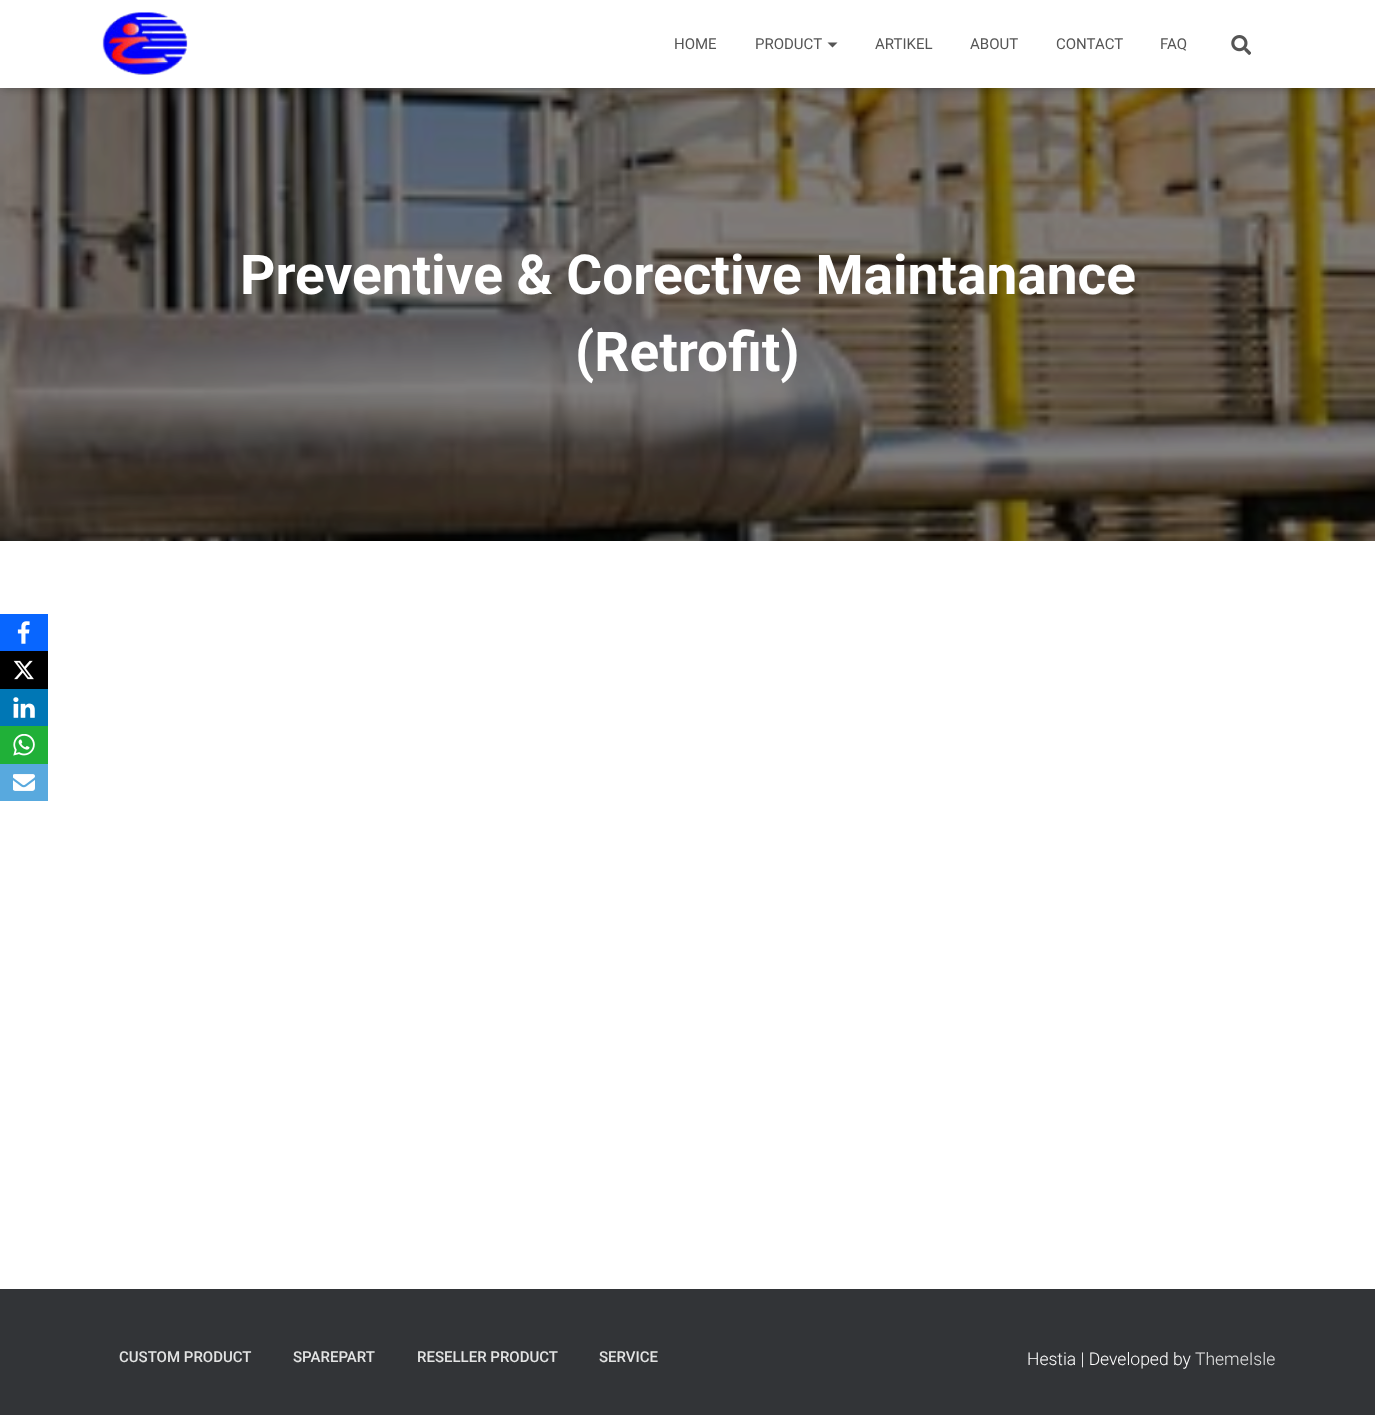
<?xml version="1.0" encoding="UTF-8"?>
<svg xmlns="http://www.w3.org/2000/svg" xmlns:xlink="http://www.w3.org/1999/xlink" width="1375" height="1415">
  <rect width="100%" height="100%" fill="#ffffff" />
  <rect y="614" width="48" height="37" fill="#0866ff" />
  <image x="17" y="621" width="13" height="23" xlink:href="image1.png" />
  <rect y="651" width="48" height="38" fill="#000000" />
  <image x="13" y="660" width="21" height="20" xlink:href="image2.png" />
  <rect y="689" width="48" height="37" fill="#0077b5" />
  <image x="13" y="697" width="22" height="21" xlink:href="image3.png" />
  <rect y="726" width="48" height="38" fill="#20b038" />
  <image x="13" y="734" width="22" height="22" xlink:href="image4.png" />
  <rect y="764" width="48" height="37" fill="#58a9de" />
  <image x="13" y="774" width="22" height="17" xlink:href="image5.png" />
  <image x="0" y="88" width="1375" height="453" xlink:href="image8.png" />
  <rect x="3" y="8" width="1370" height="82" fill="#000000" fill-opacity="0.1" filter="blur(3px)" />
  <rect y="1" width="1375" height="88" fill="#000000" fill-opacity="0.12" filter="blur(6px)" />
  <rect x="8" y="9" width="1360" height="72" fill="#000000" fill-opacity="0.42" filter="blur(6px)" />
  <rect width="1375" height="88" fill="#ffffff" />
  <image x="102" y="12" width="86" height="63" xlink:href="image6.png" />
  <path d="M 827.5 42.5 h 10 l -5 5 z" fill="#555555" />
  <image x="1231" y="35" width="20" height="20" xlink:href="image7.png" />
  <rect y="1289" width="1375" height="126" fill="#323437" />
  <text x="674" y="49" style="font-family: Roboto; font-size: 15px; fill: #555555">HOME</text>
  <text x="755" y="49" style="font-family: Roboto; font-size: 15px; fill: #555555">PRODUCT</text>
  <text x="875" y="49" style="font-family: Roboto; font-size: 15px; fill: #555555">ARTIKEL</text>
  <text x="970" y="49" style="font-family: Roboto; font-size: 15px; fill: #555555">ABOUT</text>
  <text x="1056" y="49" style="font-family: Roboto; font-size: 15px; fill: #555555">CONTACT</text>
  <text x="1160" y="49" style="font-family: Roboto; font-size: 15px; fill: #555555">FAQ</text>
  <text x="240" y="294" style="font-family: Roboto; font-size: 55px; font-weight: bold; fill: #ffffff">Preventive &amp; Corective Maintanance</text>
  <text x="575" y="371" style="font-family: Roboto; font-size: 55px; font-weight: bold; fill: #ffffff">(Retrofit)</text>
  <text x="119" y="1362" style="font-family: Roboto; font-size: 15px; font-weight: 500; fill: #e2e3e3">CUSTOM PRODUCT</text>
  <text x="293" y="1362" style="font-family: Roboto; font-size: 15px; font-weight: 500; fill: #e2e3e3">SPAREPART</text>
  <text x="417" y="1362" style="font-family: Roboto; font-size: 15px; font-weight: 500; fill: #e2e3e3">RESELLER PRODUCT</text>
  <text x="599" y="1362" style="font-family: Roboto; font-size: 15px; font-weight: 500; fill: #e2e3e3">SERVICE</text>
  <text x="1027" y="1365" style="font-family: Roboto; font-size: 17.5px; font-weight: 300; fill: #ffffff">Hestia | Developed by</text>
  <text x="1195" y="1365" style="font-family: Roboto; font-size: 17.5px; font-weight: 300; fill: #e2e3e3">ThemeIsle</text>
</svg>
